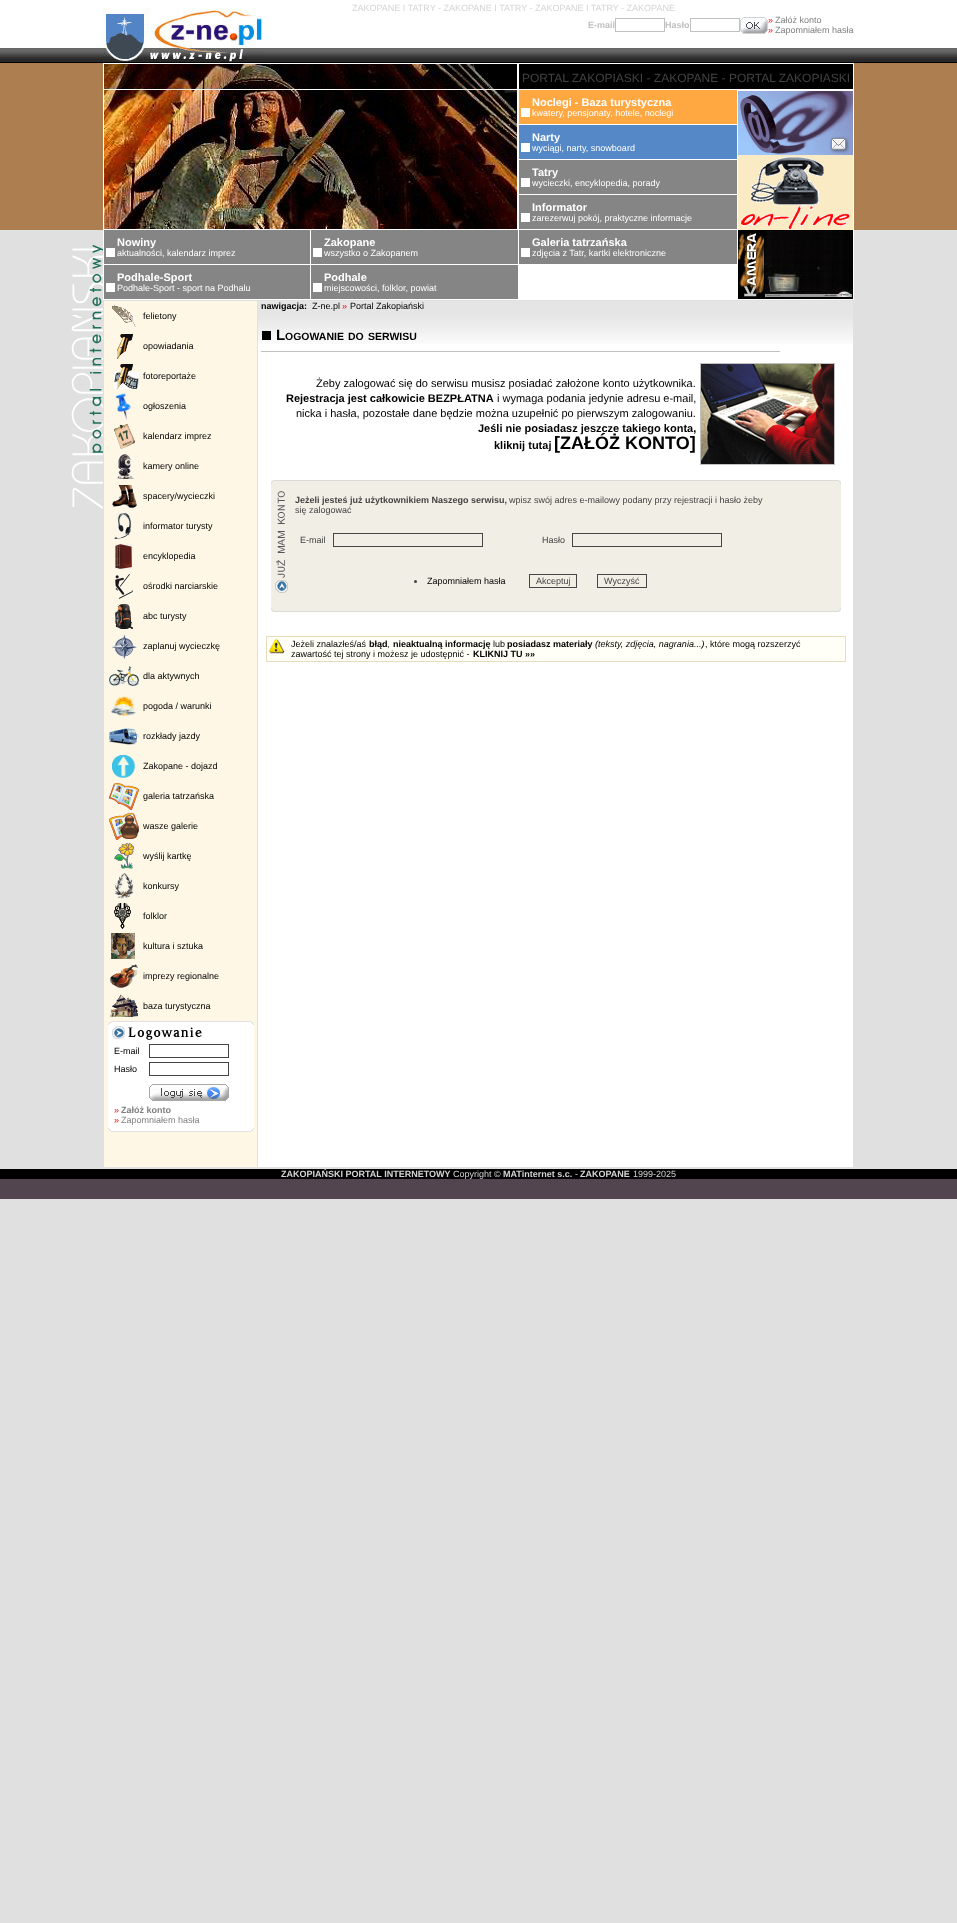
<?xml version="1.0" encoding="UTF-8"?>
<svg xmlns="http://www.w3.org/2000/svg" xmlns:xlink="http://www.w3.org/1999/xlink" width="957" height="1923">
  <rect width="100%" height="100%" fill="#e0e0e0" />
  <image x="0" y="0" width="957" height="63" xlink:href="image1.png" />
  <image x="103" y="8" width="160" height="55" xlink:href="image2.png" />
  <rect x="615.5" y="18.5" width="49" height="13" fill="none" stroke="#c0c0c0" />
  <rect x="690.5" y="18.5" width="49" height="13" fill="none" stroke="#c0c0c0" />
  <image x="740" y="17" width="28" height="17" xlink:href="image3.png" />
  <rect y="63" width="103" height="167" fill="#ac7e50" />
  <image x="71" y="244" width="32" height="265" xlink:href="image4.png" />
  <rect x="103" y="63" width="751" height="237" fill="#ffffff" />
  <image x="104" y="64" width="413" height="165" xlink:href="image5.png" />
  <rect x="519" y="64" width="334" height="25" fill="#000000" />
  <rect x="519" y="90" width="218" height="34" fill="#ffa740" />
  <rect x="521" y="108" width="9" height="9" fill="#ffffff" />
  <image x="738" y="91" width="115" height="139" xlink:href="image6.png" />
  <rect x="738" y="230" width="115" height="69" fill="#000000" />
  <image x="738" y="232" width="26" height="65" xlink:href="image7.png" />
  <image x="765" y="231" width="87" height="66" xlink:href="image8.png" />
  <rect x="519" y="125" width="218" height="34" fill="#5488c6" />
  <rect x="521" y="143" width="9" height="9" fill="#ffffff" />
  <rect x="519" y="160" width="218" height="34" fill="#858585" />
  <rect x="521" y="178" width="9" height="9" fill="#ffffff" />
  <rect x="519" y="195" width="218" height="34" fill="#858585" />
  <rect x="521" y="213" width="9" height="9" fill="#ffffff" />
  <rect x="104" y="230" width="206" height="34" fill="#858585" />
  <rect x="106" y="248" width="9" height="9" fill="#ffffff" />
  <rect x="311" y="230" width="207" height="34" fill="#858585" />
  <rect x="313" y="248" width="9" height="9" fill="#ffffff" />
  <rect x="519" y="230" width="218" height="34" fill="#858585" />
  <rect x="521" y="248" width="9" height="9" fill="#ffffff" />
  <rect x="104" y="265" width="206" height="34" fill="#858585" />
  <rect x="106" y="283" width="9" height="9" fill="#ffffff" />
  <rect x="311" y="265" width="207" height="34" fill="#858585" />
  <rect x="313" y="283" width="9" height="9" fill="#ffffff" />
  <rect x="104" y="301" width="153" height="866" fill="#fff7e6" />
  <image x="112" y="305" width="24" height="22" xlink:href="image9.png" />
  <image x="117" y="334" width="16" height="25" xlink:href="image10.png" />
  <image x="114" y="364" width="25" height="25" xlink:href="image11.png" />
  <image x="115" y="393" width="16" height="27" xlink:href="image12.png" />
  <image x="114" y="424" width="21" height="25" xlink:href="image13.png" />
  <image x="116" y="454" width="18" height="25" xlink:href="image14.png" />
  <image x="112" y="485" width="25" height="23" xlink:href="image15.png" />
  <image x="114" y="513" width="18" height="26" xlink:href="image16.png" />
  <image x="115" y="544" width="17" height="25" xlink:href="image17.png" />
  <image x="115" y="574" width="18" height="25" xlink:href="image18.png" />
  <image x="115" y="604" width="18" height="25" xlink:href="image19.png" />
  <image x="112" y="635" width="25" height="24" xlink:href="image20.png" />
  <image x="109" y="666" width="30" height="20" xlink:href="image21.png" />
  <image x="111" y="696" width="25" height="20" xlink:href="image22.png" />
  <image x="109" y="728" width="30" height="17" xlink:href="image23.png" />
  <image x="112" y="755" width="23" height="23" xlink:href="image24.png" />
  <image x="109" y="783" width="30" height="27" xlink:href="image25.png" />
  <image x="109" y="813" width="30" height="27" xlink:href="image26.png" />
  <image x="114" y="843" width="20" height="26" xlink:href="image27.png" />
  <image x="114" y="873" width="20" height="26" xlink:href="image28.png" />
  <image x="114" y="903" width="17" height="26" xlink:href="image29.png" />
  <image x="111" y="933" width="24" height="26" xlink:href="image30.png" />
  <image x="110" y="964" width="28" height="24" xlink:href="image31.png" />
  <image x="110" y="994" width="28" height="23" xlink:href="image32.png" />
  <image x="108" y="1021" width="146" height="4" xlink:href="image33.png" />
  <rect x="108" y="1025" width="146" height="103" fill="#ffffff" />
  <image x="112" y="1026" width="90" height="14" xlink:href="image34.png" />
  <rect x="149.5" y="1044.5" width="79" height="13" fill="none" stroke="#454545" />
  <rect x="149.5" y="1062.5" width="79" height="13" fill="none" stroke="#454545" />
  <image x="149" y="1084" width="80" height="17" xlink:href="image35.png" />
  <image x="108" y="1128" width="146" height="4" xlink:href="image36.png" />
  <rect x="258" y="344" width="595" height="823" fill="#ffffff" />
  <rect x="258" y="301" width="595" height="10" fill="#e5e5e5" />
  <image x="258" y="311" width="595" height="33" xlink:href="image37.png" />
  <rect x="262" y="331" width="9" height="9" fill="#000000" />
  <rect x="261" y="351" width="519" height="1" fill="#c0c0c0" />
  <rect x="700.5" y="363.5" width="134" height="101" fill="none" stroke="#c0c0c0" />
  <image x="701" y="364" width="133" height="100" xlink:href="image38.png" />
  <image x="271" y="480" width="570" height="4" xlink:href="image39.png" />
  <rect x="271" y="484" width="570" height="124" fill="#f0eee5" />
  <image x="275" y="491" width="13" height="102" xlink:href="image40.png" />
  <rect x="333.5" y="533.5" width="149" height="13" fill="none" stroke="#454545" />
  <rect x="572.5" y="533.5" width="149" height="13" fill="none" stroke="#454545" />
  <circle cx="415.5" cy="581.5" r="1.5" fill="#434343" />
  <rect x="529.5" y="574.5" width="47" height="13" fill="none" stroke="#454545" />
  <rect x="597.5" y="574.5" width="49" height="13" fill="none" stroke="#454545" />
  <image x="271" y="608" width="570" height="4" xlink:href="image41.png" />
  <rect x="266.5" y="636.5" width="579" height="25" fill="#fffff7" stroke="#e5ddbc" />
  <image x="269" y="639" width="16" height="15" xlink:href="image42.png" />
  <rect x="854" y="63" width="103" height="167" fill="#ac7e50" />
  <rect y="1169" width="957" height="10" fill="#000000" />
  <rect y="1179" width="957" height="20" fill="#524550" />
  <text x="352" y="11" style="font-family: Liberation Sans; font-size: 9px; fill: #d5d5d5">ZAKOPANE I TATRY - ZAKOPANE I TATRY - ZAKOPANE I TATRY - ZAKOPANE</text>
  <text x="588" y="28" style="font-family: Liberation Sans; font-size: 9px; font-weight: bold; fill: #c0c0c0">E-mail</text>
  <text x="665" y="28" style="font-family: Liberation Sans; font-size: 9px; font-weight: bold; fill: #c0c0c0">Hasło</text>
  <text x="768" y="23" style="font-family: Liberation Sans; font-size: 9px; fill: #ff0000">»</text>
  <text x="775" y="23" style="font-family: Liberation Sans; font-size: 9px; fill: #808080">Załóż konto</text>
  <text x="768" y="33" style="font-family: Liberation Sans; font-size: 9px; fill: #ff0000">»</text>
  <text x="775" y="33" style="font-family: Liberation Sans; font-size: 9px; fill: #808080">Zapomniałem hasła</text>
  <text x="522" y="82" style="font-family: Liberation Sans; font-size: 12px; fill: #434343">PORTAL ZAKOPIASKI - ZAKOPANE - PORTAL ZAKOPIASKI</text>
  <text x="532" y="106" style="font-family: Liberation Sans; font-size: 11px; font-weight: bold; fill: #ffffff">Noclegi - Baza turystyczna</text>
  <text x="532" y="116" style="font-family: Liberation Sans; font-size: 9px; fill: #ffffff">kwatery, pensjonaty, hotele, noclegi</text>
  <text x="532" y="141" style="font-family: Liberation Sans; font-size: 11px; font-weight: bold; fill: #ffffff">Narty</text>
  <text x="532" y="151" style="font-family: Liberation Sans; font-size: 9px; fill: #ffffff">wyciągi, narty, snowboard</text>
  <text x="532" y="176" style="font-family: Liberation Sans; font-size: 11px; font-weight: bold; fill: #ffffff">Tatry</text>
  <text x="532" y="186" style="font-family: Liberation Sans; font-size: 9px; fill: #ffffff">wycieczki, encyklopedia, porady</text>
  <text x="532" y="211" style="font-family: Liberation Sans; font-size: 11px; font-weight: bold; fill: #ffffff">Informator</text>
  <text x="532" y="221" style="font-family: Liberation Sans; font-size: 9px; fill: #ffffff">zarezerwuj pokój, praktyczne informacje</text>
  <text x="117" y="246" style="font-family: Liberation Sans; font-size: 11px; font-weight: bold; fill: #ffffff">Nowiny</text>
  <text x="117" y="256" style="font-family: Liberation Sans; font-size: 9px; fill: #ffffff">aktualności, kalendarz imprez</text>
  <text x="324" y="246" style="font-family: Liberation Sans; font-size: 11px; font-weight: bold; fill: #ffffff">Zakopane</text>
  <text x="324" y="256" style="font-family: Liberation Sans; font-size: 9px; fill: #ffffff">wszystko o Zakopanem</text>
  <text x="532" y="246" style="font-family: Liberation Sans; font-size: 11px; font-weight: bold; fill: #ffffff">Galeria tatrzańska</text>
  <text x="532" y="256" style="font-family: Liberation Sans; font-size: 9px; fill: #ffffff">zdjęcia z Tatr, kartki elektroniczne</text>
  <text x="117" y="281" style="font-family: Liberation Sans; font-size: 11px; font-weight: bold; fill: #ffffff">Podhale-Sport</text>
  <text x="117" y="291" style="font-family: Liberation Sans; font-size: 9px; fill: #ffffff">Podhale-Sport - sport na Podhalu</text>
  <text x="324" y="281" style="font-family: Liberation Sans; font-size: 11px; font-weight: bold; fill: #ffffff">Podhale</text>
  <text x="324" y="291" style="font-family: Liberation Sans; font-size: 9px; fill: #ffffff">miejscowości, folklor, powiat</text>
  <text x="143" y="319" style="font-family: Liberation Sans; font-size: 9px; fill: #000000">felietony</text>
  <text x="143" y="349" style="font-family: Liberation Sans; font-size: 9px; fill: #000000">opowiadania</text>
  <text x="143" y="379" style="font-family: Liberation Sans; font-size: 9px; fill: #000000">fotoreportaże</text>
  <text x="143" y="409" style="font-family: Liberation Sans; font-size: 9px; fill: #000000">ogłoszenia</text>
  <text x="143" y="439" style="font-family: Liberation Sans; font-size: 9px; fill: #000000">kalendarz imprez</text>
  <text x="143" y="469" style="font-family: Liberation Sans; font-size: 9px; fill: #000000">kamery online</text>
  <text x="143" y="499" style="font-family: Liberation Sans; font-size: 9px; fill: #000000">spacery/wycieczki</text>
  <text x="143" y="529" style="font-family: Liberation Sans; font-size: 9px; fill: #000000">informator turysty</text>
  <text x="143" y="559" style="font-family: Liberation Sans; font-size: 9px; fill: #000000">encyklopedia</text>
  <text x="143" y="589" style="font-family: Liberation Sans; font-size: 9px; fill: #000000">ośrodki narciarskie</text>
  <text x="143" y="619" style="font-family: Liberation Sans; font-size: 9px; fill: #000000">abc turysty</text>
  <text x="143" y="649" style="font-family: Liberation Sans; font-size: 9px; fill: #000000">zaplanuj wycieczkę</text>
  <text x="143" y="679" style="font-family: Liberation Sans; font-size: 9px; fill: #000000">dla aktywnych</text>
  <text x="143" y="709" style="font-family: Liberation Sans; font-size: 9px; fill: #000000">pogoda / warunki</text>
  <text x="143" y="739" style="font-family: Liberation Sans; font-size: 9px; fill: #000000">rozkłady jazdy</text>
  <text x="143" y="769" style="font-family: Liberation Sans; font-size: 9px; fill: #000000">Zakopane - dojazd</text>
  <text x="143" y="799" style="font-family: Liberation Sans; font-size: 9px; fill: #000000">galeria tatrzańska</text>
  <text x="143" y="829" style="font-family: Liberation Sans; font-size: 9px; fill: #000000">wasze galerie</text>
  <text x="143" y="859" style="font-family: Liberation Sans; font-size: 9px; fill: #000000">wyślij kartkę</text>
  <text x="143" y="889" style="font-family: Liberation Sans; font-size: 9px; fill: #000000">konkursy</text>
  <text x="143" y="919" style="font-family: Liberation Sans; font-size: 9px; fill: #000000">folklor</text>
  <text x="143" y="949" style="font-family: Liberation Sans; font-size: 9px; fill: #000000">kultura i sztuka</text>
  <text x="143" y="979" style="font-family: Liberation Sans; font-size: 9px; fill: #000000">imprezy regionalne</text>
  <text x="143" y="1009" style="font-family: Liberation Sans; font-size: 9px; fill: #000000">baza turystyczna</text>
  <text x="114" y="1054" style="font-family: Liberation Sans; font-size: 9px; fill: #000000">E-mail</text>
  <text x="114" y="1072" style="font-family: Liberation Sans; font-size: 9px; fill: #000000">Hasło</text>
  <text x="114" y="1113" style="font-family: Liberation Sans; font-size: 9px; fill: #ff0000">»</text>
  <text x="121" y="1113" style="font-family: Liberation Sans; font-size: 9px; font-weight: bold; fill: #808080">Załóż konto</text>
  <text x="114" y="1123" style="font-family: Liberation Sans; font-size: 9px; fill: #ff0000">»</text>
  <text x="121" y="1123" style="font-family: Liberation Sans; font-size: 9px; fill: #808080">Zapomniałem hasła</text>
  <text x="261" y="309" style="font-family: Liberation Sans; font-size: 9px; font-weight: bold; fill: #000000">nawigacja:</text>
  <text x="312" y="309" style="font-family: Liberation Sans; font-size: 9px; fill: #000000">Z-ne.pl</text>
  <text x="342" y="309" style="font-family: Liberation Sans; font-size: 9px; fill: #ff0000">»</text>
  <text x="350" y="309" style="font-family: Liberation Sans; font-size: 9px; fill: #000000">Portal Zakopiański</text>
  <text x="276" y="340" style="font-family: Liberation Sans; font-size: 15px; font-weight: bold; fill: #000000">L</text>
  <text x="285" y="340" style="font-family: Liberation Sans; font-size: 10.5px; font-weight: bold; fill: #000000">OGOWANIE</text>
  <text x="348" y="340" style="font-family: Liberation Sans; font-size: 10.5px; font-weight: bold; fill: #000000">DO</text>
  <text x="368" y="340" style="font-family: Liberation Sans; font-size: 10.5px; font-weight: bold; fill: #000000">SERWISU</text>
  <text x="316" y="387" style="font-family: Liberation Sans; font-size: 11px; fill: #000000">Żeby zalogować się do serwisu musisz posiadać założone konto użytkownika.</text>
  <text x="286" y="402" style="font-family: Liberation Sans; font-size: 11px; font-weight: bold; fill: #000000">Rejestracja jest całkowicie BEZPŁATNA</text>
  <text x="497" y="402" style="font-family: Liberation Sans; font-size: 11px; fill: #000000">i wymaga podania jedynie adresu e-mail,</text>
  <text x="296" y="417" style="font-family: Liberation Sans; font-size: 11px; fill: #000000">nicka i hasła, pozostałe dane będzie można uzupełnić po pierwszym zalogowaniu.</text>
  <text x="478" y="432" style="font-family: Liberation Sans; font-size: 11px; font-weight: bold; fill: #000000">Jeśli nie posiadasz jeszcze takiego konta,</text>
  <text x="494" y="449" style="font-family: Liberation Sans; font-size: 11px; font-weight: bold; fill: #000000">kliknij tutaj</text>
  <text x="554" y="449" style="font-family: Liberation Sans; font-size: 18px; font-weight: bold; fill: #000000">[ZAŁÓŻ KONTO]</text>
  <text x="295" y="503" style="font-family: Liberation Sans; font-size: 9px; font-weight: bold; fill: #434343">Jeżeli jesteś już użytkownikiem Naszego serwisu,</text>
  <text x="509" y="503" style="font-family: Liberation Sans; font-size: 9px; fill: #434343">wpisz swój adres e-mailowy podany przy rejestracji i hasło żeby</text>
  <text x="295" y="513" style="font-family: Liberation Sans; font-size: 9px; fill: #434343">się zalogować</text>
  <text x="300" y="543" style="font-family: Liberation Sans; font-size: 9px; fill: #434343">E-mail</text>
  <text x="542" y="543" style="font-family: Liberation Sans; font-size: 9px; fill: #434343">Hasło</text>
  <text x="427" y="584" style="font-family: Liberation Sans; font-size: 9px; fill: #000000">Zapomniałem hasła</text>
  <text x="536" y="584" style="font-family: Liberation Sans; font-size: 9px; fill: #434343">Akceptuj</text>
  <text x="604" y="584" style="font-family: Liberation Sans; font-size: 9px; fill: #434343">Wyczyść</text>
  <text x="291" y="647" style="font-family: Liberation Sans; font-size: 9px; fill: #000000">Jeżeli znalazłeś/aś</text>
  <text x="369" y="647" style="font-family: Liberation Sans; font-size: 9px; font-weight: bold; fill: #000000">błąd</text>
  <text x="387" y="647" style="font-family: Liberation Sans; font-size: 9px; fill: #000000">,</text>
  <text x="393" y="647" style="font-family: Liberation Sans; font-size: 9px; font-weight: bold; fill: #000000">nieaktualną informację</text>
  <text x="493" y="647" style="font-family: Liberation Sans; font-size: 9px; fill: #000000">lub</text>
  <text x="507" y="647" style="font-family: Liberation Sans; font-size: 9px; font-weight: bold; fill: #000000">posiadasz materiały</text>
  <text x="595" y="647" style="font-family: Liberation Sans; font-size: 9px; font-style: italic; fill: #000000">(teksty, zdjęcia, nagrania...)</text>
  <text x="705" y="647" style="font-family: Liberation Sans; font-size: 9px; fill: #000000">, które mogą rozszerzyć</text>
  <text x="291" y="657" style="font-family: Liberation Sans; font-size: 9px; fill: #000000">zawartość tej strony i możesz je udostępnić -</text>
  <text x="473" y="657" style="font-family: Liberation Sans; font-size: 9px; font-weight: bold; fill: #000000">KLIKNIJ TU »»</text>
  <text x="281" y="1177" style="font-family: Liberation Sans; font-size: 9px; font-weight: bold; fill: #d5d5d5">ZAKOPIAŃSKI PORTAL INTERNETOWY</text>
  <text x="453" y="1177" style="font-family: Liberation Sans; font-size: 9px; fill: #d5d5d5">Copyright ©</text>
  <text x="503" y="1177" style="font-family: Liberation Sans; font-size: 9px; font-weight: bold; fill: #d5d5d5">MATinternet s.c.</text>
  <text x="575" y="1177" style="font-family: Liberation Sans; font-size: 9px; fill: #d5d5d5">-</text>
  <text x="580" y="1177" style="font-family: Liberation Sans; font-size: 9px; font-weight: bold; fill: #d5d5d5">ZAKOPANE</text>
  <text x="633" y="1177" style="font-family: Liberation Sans; font-size: 9px; fill: #d5d5d5">1999-2025</text>
</svg>
